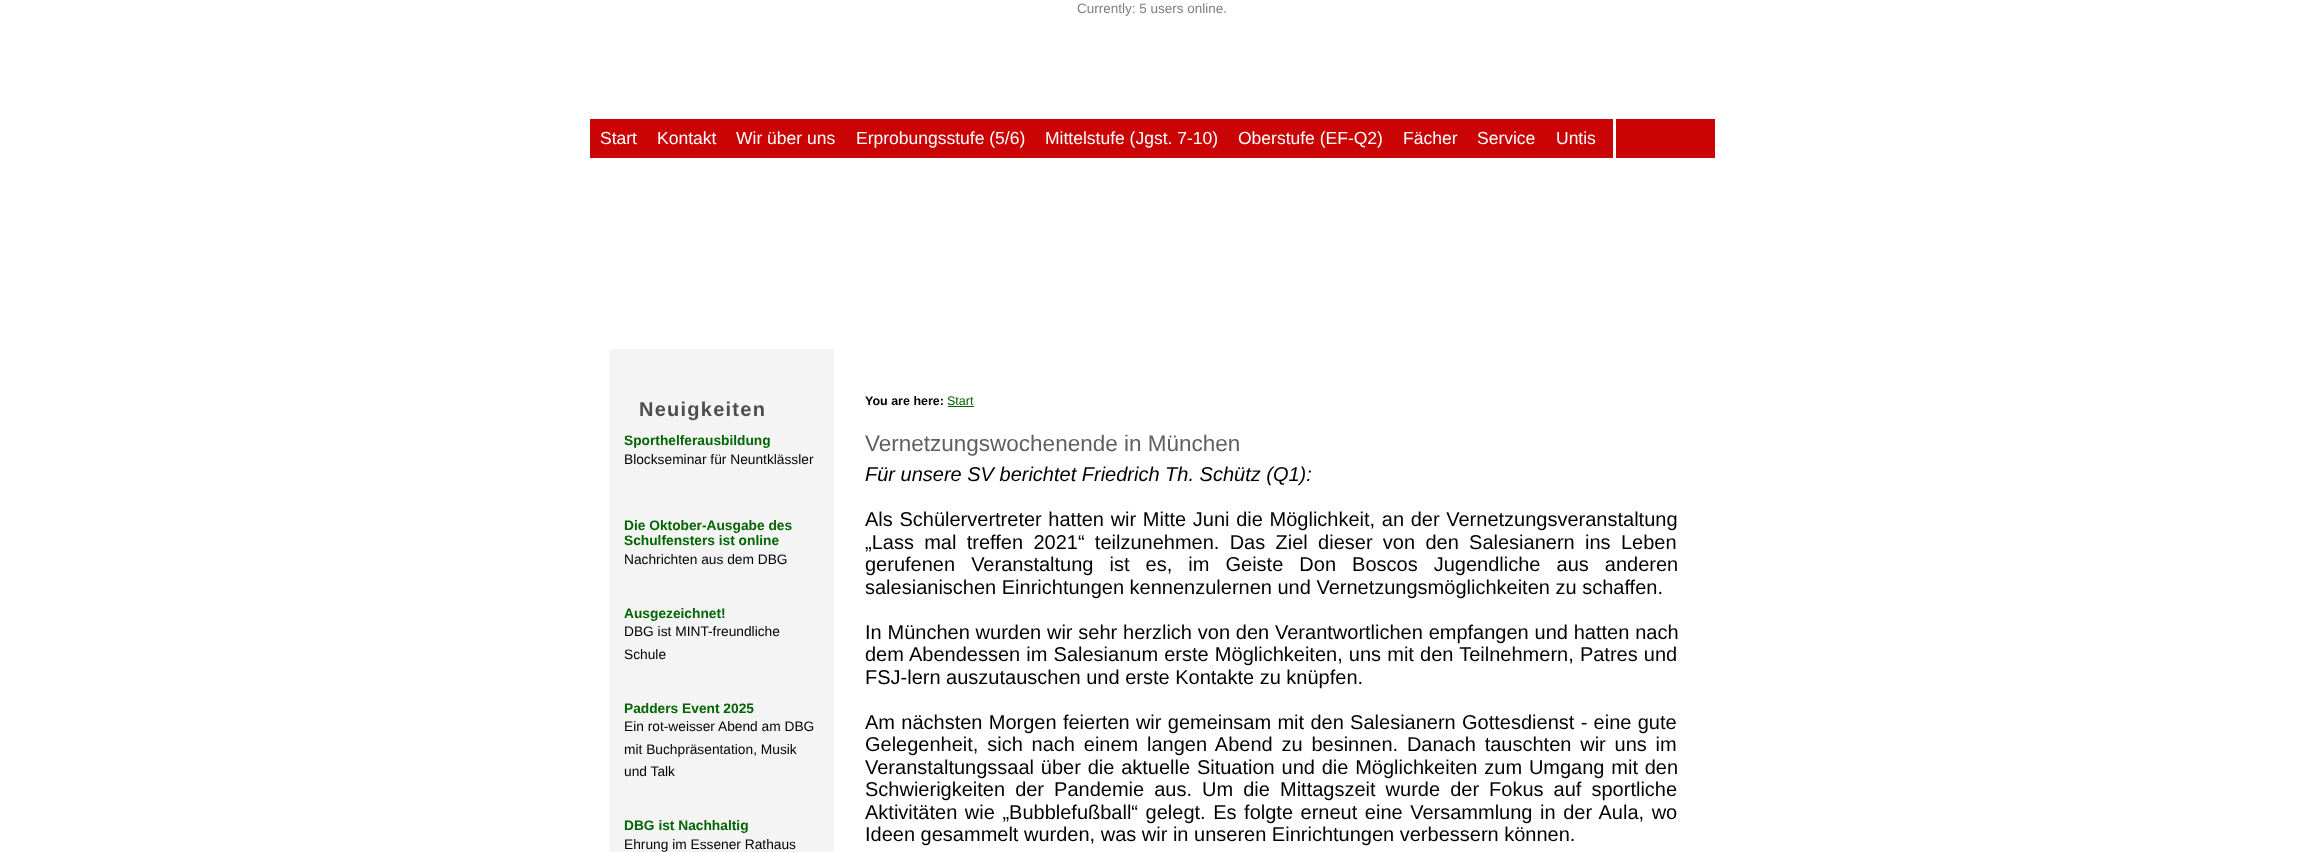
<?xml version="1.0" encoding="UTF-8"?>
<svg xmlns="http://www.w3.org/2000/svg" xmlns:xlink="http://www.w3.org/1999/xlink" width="2305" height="852">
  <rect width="100%" height="100%" fill="#ffffff" />
  <rect x="590" y="119" width="1125" height="39" fill="#ca0404" />
  <rect x="1613" y="119" width="3" height="39" fill="#ffffff" />
  <rect x="609" y="349" width="225" height="503" fill="#f4f4f4" />
  <rect x="948" y="406" width="26" height="1" fill="#006400" />
  <text x="1077" y="13" style="font-family: Liberation Sans; font-size: 13.5px; fill: #7f7f7f">Currently: 5 users online.</text>
  <text x="600" y="144" style="font-family: Liberation Sans; font-size: 17.5px; fill: #ffffff">Start</text>
  <text x="657" y="144" style="font-family: Liberation Sans; font-size: 17.5px; fill: #ffffff">Kontakt</text>
  <text x="736" y="144" style="font-family: Liberation Sans; font-size: 17.5px; fill: #ffffff">Wir über uns</text>
  <text x="856" y="144" style="font-family: Liberation Sans; font-size: 17.5px; fill: #ffffff">Erprobungsstufe (5/6)</text>
  <text x="1045" y="144" style="font-family: Liberation Sans; font-size: 17.5px; fill: #ffffff">Mittelstufe (Jgst. 7-10)</text>
  <text x="1238" y="144" style="font-family: Liberation Sans; font-size: 17.5px; fill: #ffffff">Oberstufe (EF-Q2)</text>
  <text x="1403" y="144" style="font-family: Liberation Sans; font-size: 17.5px; fill: #ffffff">Fächer</text>
  <text x="1477" y="144" style="font-family: Liberation Sans; font-size: 17.5px; fill: #ffffff">Service</text>
  <text x="1556" y="144" style="font-family: Liberation Sans; font-size: 17.5px; fill: #ffffff">Untis</text>
  <text x="639" y="416" style="font-family: Liberation Sans; font-size: 20px; font-weight: bold; letter-spacing: 1.25px; fill: #4e4e4e">Neuigkeiten</text>
  <text x="624" y="445" style="font-family: Liberation Sans; font-size: 13.75px; font-weight: bold; fill: #006400">Sporthelferausbildung</text>
  <text x="624" y="464" style="font-family: Liberation Sans; font-size: 13.75px; fill: #000000">Blockseminar für Neuntklässler</text>
  <text x="624" y="530" style="font-family: Liberation Sans; font-size: 13.75px; font-weight: bold; fill: #006400">Die Oktober-Ausgabe des</text>
  <text x="624" y="545" style="font-family: Liberation Sans; font-size: 13.75px; font-weight: bold; fill: #006400">Schulfensters ist online</text>
  <text x="624" y="564" style="font-family: Liberation Sans; font-size: 13.75px; fill: #000000">Nachrichten aus dem DBG</text>
  <text x="624" y="618" style="font-family: Liberation Sans; font-size: 13.75px; font-weight: bold; fill: #006400">Ausgezeichnet!</text>
  <text x="624" y="636" style="font-family: Liberation Sans; font-size: 13.75px; fill: #000000">DBG ist MINT-freundliche</text>
  <text x="624" y="659" style="font-family: Liberation Sans; font-size: 13.75px; fill: #000000">Schule</text>
  <text x="624" y="713" style="font-family: Liberation Sans; font-size: 13.75px; font-weight: bold; fill: #006400">Padders Event 2025</text>
  <text x="624" y="731" style="font-family: Liberation Sans; font-size: 13.75px; fill: #000000">Ein rot-weisser Abend am DBG</text>
  <text x="624" y="754" style="font-family: Liberation Sans; font-size: 13.75px; fill: #000000">mit Buchpräsentation, Musik</text>
  <text x="624" y="776" style="font-family: Liberation Sans; font-size: 13.75px; fill: #000000">und Talk</text>
  <text x="624" y="830" style="font-family: Liberation Sans; font-size: 13.75px; font-weight: bold; fill: #006400">DBG ist Nachhaltig</text>
  <text x="624" y="849" style="font-family: Liberation Sans; font-size: 13.75px; fill: #000000">Ehrung im Essener Rathaus</text>
  <text x="865" y="405" style="font-family: Liberation Sans; font-size: 12.5px; font-weight: bold; fill: #000000">You are here:</text>
  <text x="947" y="405" style="font-family: Liberation Sans; font-size: 12.5px; fill: #006400">Start</text>
  <text x="865" y="451" style="font-family: Liberation Sans; font-size: 22.5px; fill: #5f5f5f">Vernetzungswochenende in München</text>
  <text x="865" y="481" style="font-family: Liberation Sans; font-size: 20px; font-style: italic; fill: #000000">Für unsere SV berichtet Friedrich Th. Schütz (Q1):</text>
  <text x="865" y="526" word-spacing="1.1" style="font-family: Liberation Sans; font-size: 20px; fill: #000000">Als Schülervertreter hatten wir Mitte Juni die Möglichkeit, an der Vernetzungsveranstaltung</text>
  <text x="865" y="549" word-spacing="4.75" style="font-family: Liberation Sans; font-size: 20px; fill: #000000">„Lass mal treffen 2021“ teilzunehmen. Das Ziel dieser von den Salesianern ins Leben</text>
  <text x="865" y="571" word-spacing="10.5" style="font-family: Liberation Sans; font-size: 20px; fill: #000000">gerufenen Veranstaltung ist es, im Geiste Don Boscos Jugendliche aus anderen</text>
  <text x="865" y="594" style="font-family: Liberation Sans; font-size: 20px; fill: #000000">salesianischen Einrichtungen kennenzulernen und Vernetzungsmöglichkeiten zu schaffen.</text>
  <text x="865" y="639" word-spacing="0.25" style="font-family: Liberation Sans; font-size: 20px; fill: #000000">In München wurden wir sehr herzlich von den Verantwortlichen empfangen und hatten nach</text>
  <text x="865" y="661" word-spacing="0.6" style="font-family: Liberation Sans; font-size: 20px; fill: #000000">dem Abendessen im Salesianum erste Möglichkeiten, uns mit den Teilnehmern, Patres und</text>
  <text x="865" y="684" style="font-family: Liberation Sans; font-size: 20px; fill: #000000">FSJ-lern auszutauschen und erste Kontakte zu knüpfen.</text>
  <text x="865" y="729" word-spacing="0.75" style="font-family: Liberation Sans; font-size: 20px; fill: #000000">Am nächsten Morgen feierten wir gemeinsam mit den Salesianern Gottesdienst - eine gute</text>
  <text x="865" y="751" word-spacing="3.25" style="font-family: Liberation Sans; font-size: 20px; fill: #000000">Gelegenheit, sich nach einem langen Abend zu besinnen. Danach tauschten wir uns im</text>
  <text x="865" y="774" word-spacing="1.25" style="font-family: Liberation Sans; font-size: 20px; fill: #000000">Veranstaltungssaal über die aktuelle Situation und die Möglichkeiten zum Umgang mit den</text>
  <text x="865" y="796" word-spacing="4.5" style="font-family: Liberation Sans; font-size: 20px; fill: #000000">Schwierigkeiten der Pandemie aus. Um die Mittagszeit wurde der Fokus auf sportliche</text>
  <text x="865" y="819" word-spacing="2" style="font-family: Liberation Sans; font-size: 20px; fill: #000000">Aktivitäten wie „Bubblefußball“ gelegt. Es folgte erneut eine Versammlung in der Aula, wo</text>
  <text x="865" y="841" style="font-family: Liberation Sans; font-size: 20px; fill: #000000">Ideen gesammelt wurden, was wir in unseren Einrichtungen verbessern können.</text>
</svg>
